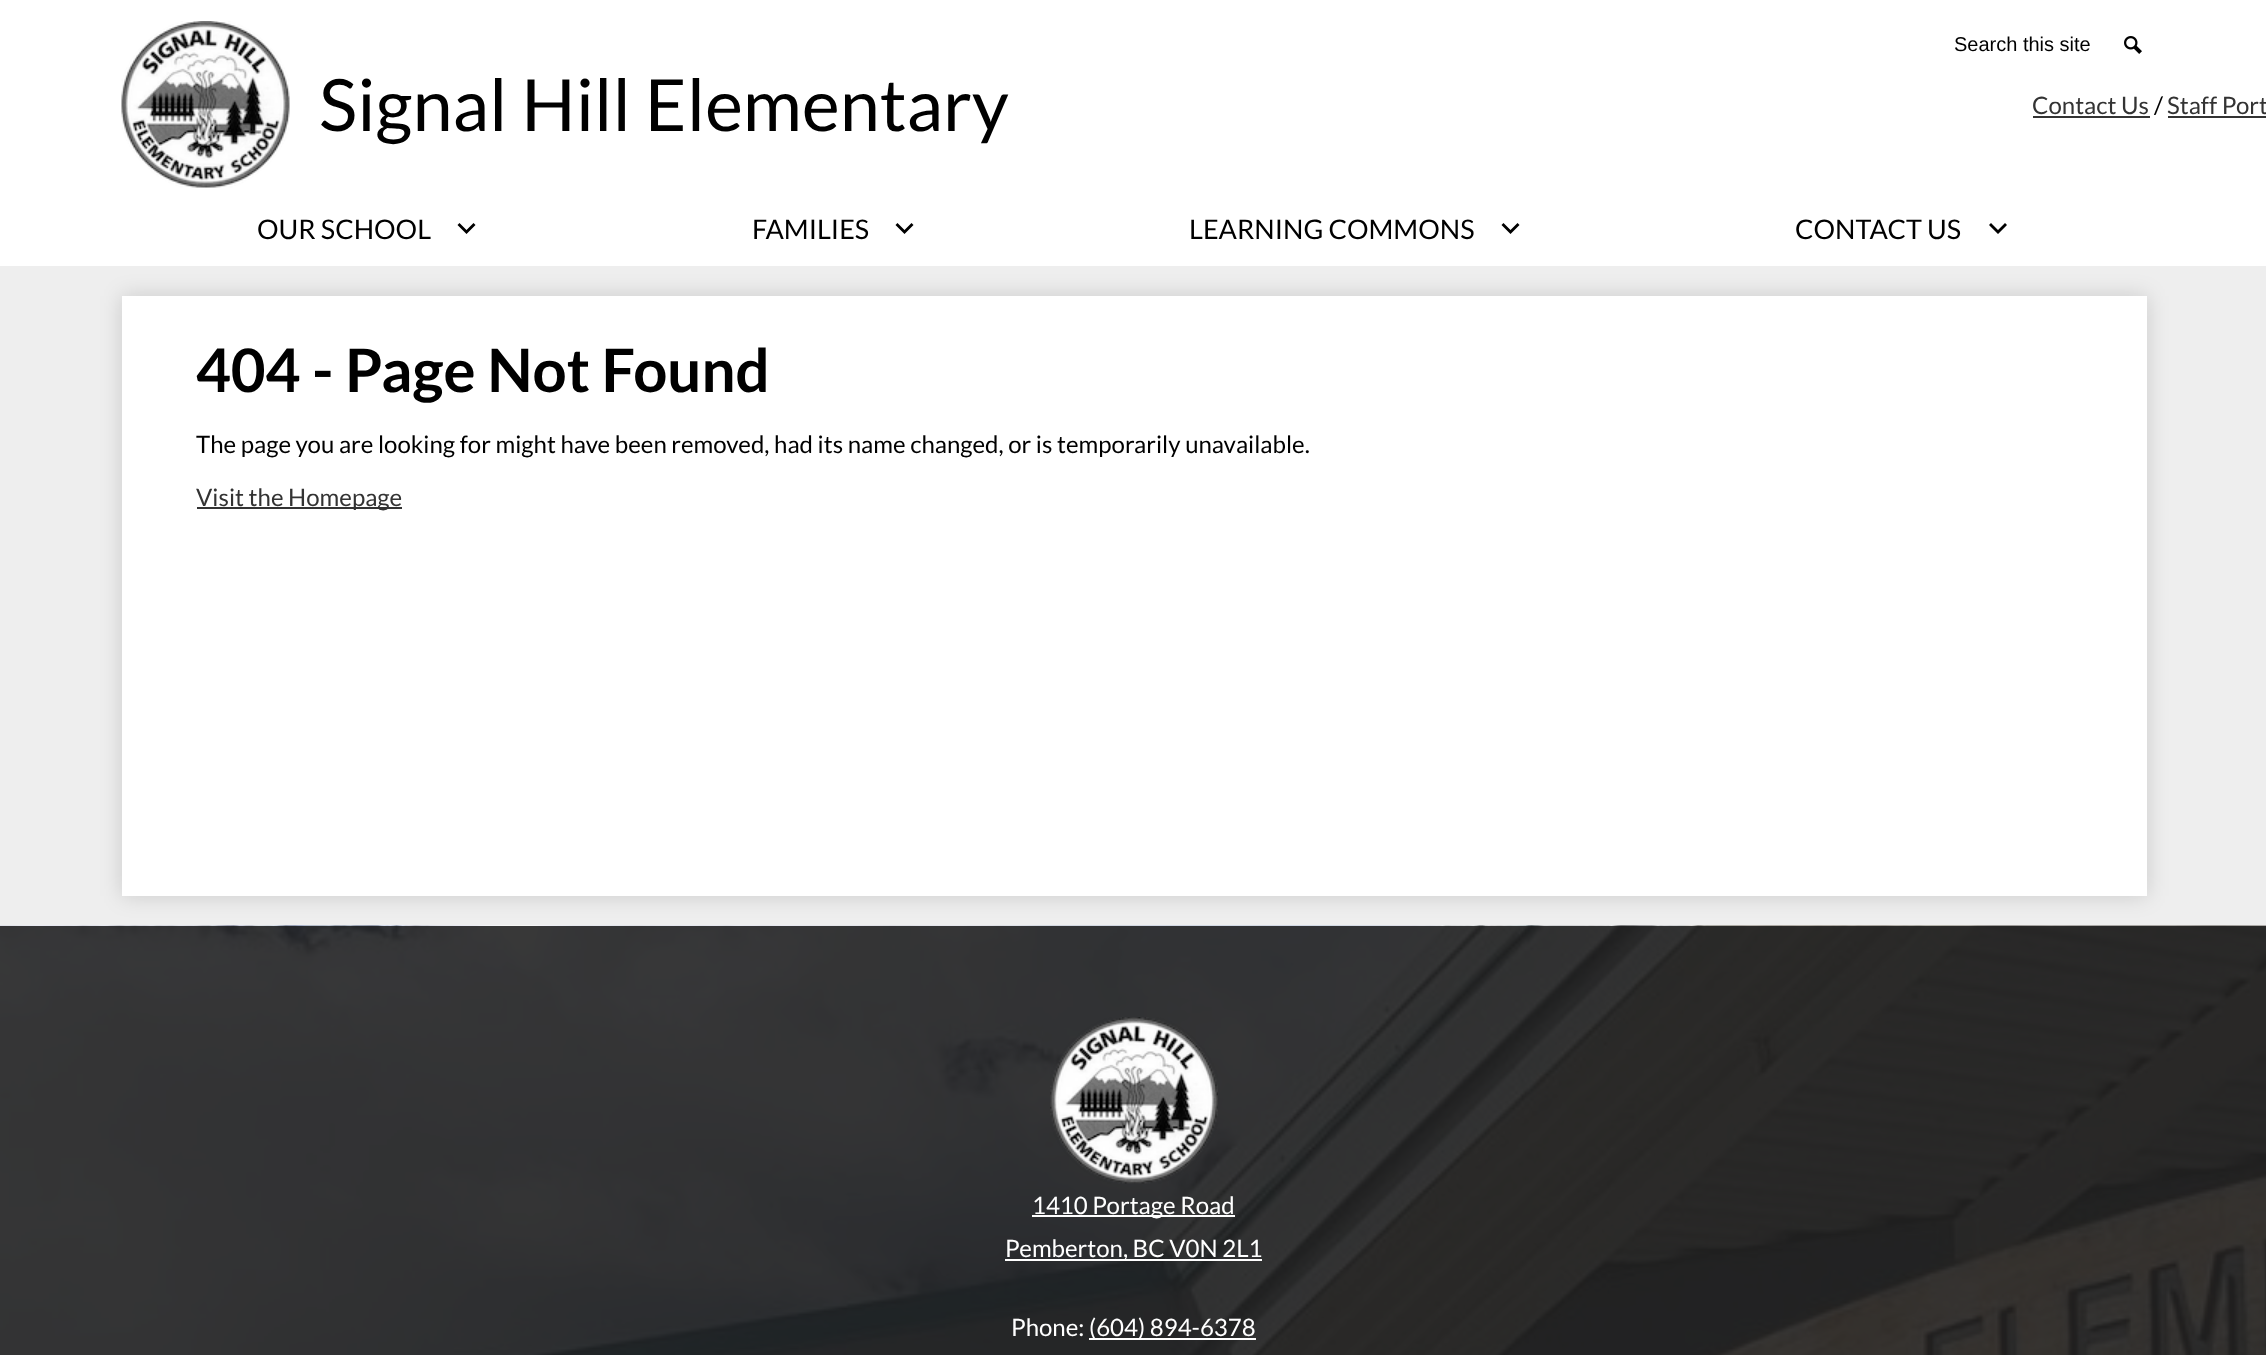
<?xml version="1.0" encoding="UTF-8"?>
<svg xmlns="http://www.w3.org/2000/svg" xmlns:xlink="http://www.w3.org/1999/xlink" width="2266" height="1355">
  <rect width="100%" height="100%" fill="#eeeeee" />
  <image x="0" y="925" width="2266" height="430" xlink:href="image3.png" />
  <rect x="122" y="296" width="2025" height="600" fill="#000000" fill-opacity="0.15" filter="blur(11px)" />
  <rect width="2266" height="266" fill="#ffffff" />
  <image x="121" y="21" width="169" height="167" xlink:href="image1.png" />
  <path d="M 473.5 223 l 2 2 l -9 9 l -9 -9 l 2 -2 l 7 7 z" fill="#000000" />
  <path d="M 911.5 223 l 2 2 l -9 9 l -9 -9 l 2 -2 l 7 7 z" fill="#000000" />
  <path d="M 1517.5 223 l 2 2 l -9 9 l -9 -9 l 2 -2 l 7 7 z" fill="#000000" />
  <path d="M 2005 223 l 2 2 l -9 9 l -9 -9 l 2 -2 l 7 7 z" fill="#000000" />
  <image x="2124" y="36" width="18" height="18" xlink:href="image2.png" />
  <rect x="2033" y="116" width="117" height="2" fill="#333333" />
  <rect x="2168" y="116" width="98" height="2" fill="#333333" />
  <rect x="122" y="296" width="2025" height="600" fill="#ffffff" />
  <rect x="197" y="507" width="205" height="2" fill="#333333" />
  <image x="1050" y="1017" width="168" height="167" xlink:href="image4.png" />
  <rect x="1032" y="1215" width="203" height="2" fill="#ffffff" />
  <rect x="1005" y="1259" width="257" height="2" fill="#ffffff" />
  <rect x="1089" y="1338" width="167" height="2" fill="#ffffff" />
  <text x="319" y="131" style="font-family: Lato; font-size: 72px; fill: #000000">Signal Hill Elementary</text>
  <text x="257" y="239" style="font-family: Lato; font-size: 27px; fill: #000000">OUR SCHOOL</text>
  <text x="752" y="239" style="font-family: Lato; font-size: 27px; fill: #000000">FAMILIES</text>
  <text x="1189" y="239" style="font-family: Lato; font-size: 27px; fill: #000000">LEARNING COMMONS</text>
  <text x="1795" y="239" style="font-family: Lato; font-size: 27px; fill: #000000">CONTACT US</text>
  <text x="1954" y="51" style="font-family: Liberation Sans; font-size: 20px; fill: #000000">Search this site</text>
  <text x="2032" y="114" style="font-family: Lato; font-size: 24px; fill: #333333">Contact Us</text>
  <text x="2154" y="114" style="font-family: Lato; font-size: 24px; fill: #000000">/</text>
  <text x="2167" y="114" style="font-family: Lato; font-size: 24px; fill: #333333">Staff Port</text>
  <text x="196" y="392" style="font-family: Lato; font-size: 60px; font-weight: bold; fill: #000000">404 - Page Not Found</text>
  <text x="196" y="453" style="font-family: Lato; font-size: 24px; fill: #000000">The page you are looking for might have been removed, had its name changed, or is temporarily unavailable.</text>
  <text x="196" y="506" style="font-family: Lato; font-size: 24px; fill: #333333">Visit the Homepage</text>
  <text x="1032" y="1214" style="font-family: Lato; font-size: 24px; fill: #ffffff">1410 Portage Road</text>
  <text x="1005" y="1257" style="font-family: Lato; font-size: 24px; fill: #ffffff">Pemberton, BC V0N 2L1</text>
  <text x="1011" y="1336" style="font-family: Lato; font-size: 24px; fill: #ffffff">Phone:</text>
  <text x="1089" y="1336" style="font-family: Lato; font-size: 24px; fill: #ffffff">(604) 894-6378</text>
</svg>
